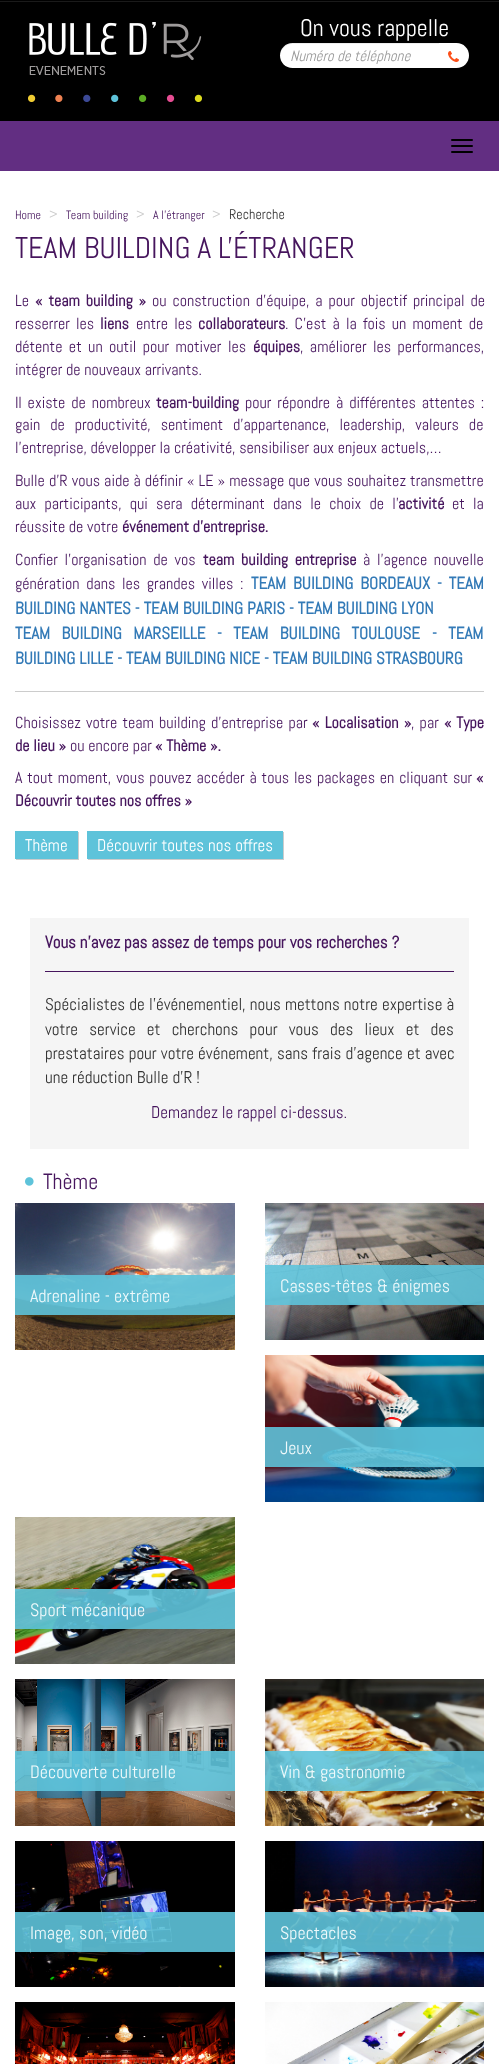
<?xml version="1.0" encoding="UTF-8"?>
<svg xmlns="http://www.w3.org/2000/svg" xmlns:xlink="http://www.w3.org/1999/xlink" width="499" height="2064">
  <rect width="100%" height="100%" fill="#ffffff" />
  <rect width="499" height="121" fill="#000000" />
  <rect y="1" width="499" height="1" fill="#1a1a1a" />
  <image x="28" y="22" width="174" height="80" xlink:href="image1.png" />
  <path d="M 292.5 43 h 146.5 v 25 h -146.5 c -7 0 -12.5 -5.5 -12.5 -12.5 c 0 -7 5.5 -12.5 12.5 -12.5 z" fill="#ffffff" />
  <path d="M 292 44 h 147 v -1 h -122 c -9 0 -37 -6 -37 13 c 0 -6 6 -12 12 -12 z" fill="#000000" fill-opacity="0.07" />
  <path d="M 439 43 h 17.5 c 7 0 12.5 5.5 12.5 12.5 c 0 7 -5.5 12.5 -12.5 12.5 h -17.5 z" fill="#ffffff" />
  <image x="448" y="51" width="11" height="11" xlink:href="image2.png" />
  <rect y="121" width="499" height="50" fill="#622e82" />
  <rect x="451" y="139" width="22" height="2" rx="1" fill="#000000" />
  <rect x="451" y="145" width="22" height="2" rx="1" fill="#000000" />
  <rect x="451" y="151" width="22" height="2" rx="1" fill="#000000" />
  <rect x="15" y="691" width="469" height="1" fill="#cccccc" />
  <rect x="16" y="832" width="63" height="28" fill="#cccccc" filter="blur(0.5px)" />
  <rect x="15" y="831" width="63" height="28" fill="#5ec3da" />
  <rect x="88" y="832" width="196" height="28" fill="#cccccc" filter="blur(0.5px)" />
  <rect x="87" y="831" width="196" height="28" fill="#5ec3da" />
  <rect x="30" y="918" width="439" height="231" fill="#f5f5f5" />
  <rect x="45" y="971" width="409" height="1" fill="#46155d" />
  <image x="25" y="1177" width="9" height="9" xlink:href="image3.png" />
  <image x="15" y="1203" width="220" height="147" xlink:href="image4.png" />
  <rect x="15" y="1275" width="220" height="40" fill="#5ec3da" fill-opacity="0.9" />
  <image x="265" y="1203" width="219" height="137" xlink:href="image5.png" />
  <rect x="265" y="1265" width="219" height="40" fill="#5ec3da" fill-opacity="0.9" />
  <image x="265" y="1355" width="219" height="147" xlink:href="image6.png" />
  <rect x="265" y="1427" width="219" height="40" fill="#5ec3da" fill-opacity="0.9" />
  <image x="15" y="1517" width="220" height="147" xlink:href="image7.png" />
  <rect x="15" y="1589" width="220" height="40" fill="#5ec3da" fill-opacity="0.9" />
  <image x="15" y="1679" width="220" height="147" xlink:href="image8.png" />
  <rect x="15" y="1751" width="220" height="40" fill="#5ec3da" fill-opacity="0.9" />
  <image x="265" y="1679" width="219" height="147" xlink:href="image9.png" />
  <rect x="265" y="1751" width="219" height="40" fill="#5ec3da" fill-opacity="0.9" />
  <image x="15" y="1841" width="220" height="146" xlink:href="image10.png" />
  <rect x="15" y="1912" width="220" height="40" fill="#5ec3da" fill-opacity="0.9" />
  <image x="265" y="1841" width="219" height="146" xlink:href="image11.png" />
  <rect x="265" y="1912" width="219" height="40" fill="#5ec3da" fill-opacity="0.9" />
  <image x="15" y="2002" width="220" height="62" xlink:href="image12.png" />
  <image x="265" y="2002" width="219" height="62" xlink:href="image13.png" />
  <text x="300" y="36" style="font-family: Abel; font-size: 24px; fill: #ffffff">On vous rappelle</text>
  <text x="290" y="61" style="font-family: Abel; font-size: 15px; font-style: italic; fill: #999999">Numéro de téléphone</text>
  <text x="15" y="219" style="font-family: Abel; font-size: 12px; fill: #46155d">Home</text>
  <text x="49" y="219" style="font-family: Abel; font-size: 14px; fill: #cccccc">&gt;</text>
  <text x="66" y="219" style="font-family: Abel; font-size: 12px; fill: #46155d">Team building</text>
  <text x="136" y="219" style="font-family: Abel; font-size: 14px; fill: #cccccc">&gt;</text>
  <text x="153" y="219" style="font-family: Abel; font-size: 12px; fill: #46155d">A l'étranger</text>
  <text x="212" y="219" style="font-family: Abel; font-size: 14px; fill: #cccccc">&gt;</text>
  <text x="229" y="219" style="font-family: Abel; font-size: 14px; fill: #333333">Recherche</text>
  <text x="15" y="258" style="font-family: Abel; font-size: 30px; fill: #46155d">TEAM BUILDING A L'ÉTRANGER</text>
  <text x="15" y="306" style="font-family: Abel; font-size: 16px; fill: #46155d">Le</text>
  <text x="35" y="306" word-spacing="2.25" style="font-family: Abel; font-size: 16px; font-weight: bold; fill: #46155d">« team building »</text>
  <text x="152" y="306" word-spacing="2.25" style="font-family: Abel; font-size: 16px; fill: #46155d">ou construction d’équipe, a pour objectif principal de</text>
  <text x="15" y="329" word-spacing="2.5" style="font-family: Abel; font-size: 16px; fill: #46155d">resserrer les</text>
  <text x="100" y="329" style="font-family: Abel; font-size: 16px; font-weight: bold; fill: #46155d">liens</text>
  <text x="136" y="329" word-spacing="2.5" style="font-family: Abel; font-size: 16px; fill: #46155d">entre les</text>
  <text x="198" y="329" style="font-family: Abel; font-size: 16px; font-weight: bold; fill: #46155d">collaborateurs</text>
  <text x="285" y="329" word-spacing="2.5" style="font-family: Abel; font-size: 16px; fill: #46155d">. C’est à la fois un moment de</text>
  <text x="15" y="352" word-spacing="2.75" style="font-family: Abel; font-size: 16px; fill: #46155d">détente et un outil pour motiver les</text>
  <text x="253" y="352" style="font-family: Abel; font-size: 16px; font-weight: bold; fill: #46155d">équipes</text>
  <text x="300" y="352" word-spacing="2.75" style="font-family: Abel; font-size: 16px; fill: #46155d">, améliorer les performances,</text>
  <text x="15" y="375" style="font-family: Abel; font-size: 16px; fill: #46155d">intégrer de nouveaux arrivants.</text>
  <text x="15" y="408" word-spacing="2.25" style="font-family: Abel; font-size: 16px; fill: #46155d">Il existe de nombreux</text>
  <text x="156" y="408" style="font-family: Abel; font-size: 16px; font-weight: bold; fill: #46155d">team-building</text>
  <text x="245" y="408" word-spacing="2.25" style="font-family: Abel; font-size: 16px; fill: #46155d">pour répondre à différentes attentes :</text>
  <text x="15" y="430" word-spacing="6.25" style="font-family: Abel; font-size: 16px; fill: #46155d">gain de productivité, sentiment d’appartenance, leadership, valeurs de</text>
  <text x="15" y="453" style="font-family: Abel; font-size: 16px; fill: #46155d">l’entreprise, développer la créativité, sensibiliser aux enjeux actuels,…</text>
  <text x="15" y="486" word-spacing="0.4" style="font-family: Abel; font-size: 16px; fill: #46155d">Bulle d’R vous aide à définir « LE » message que vous souhaitez transmettre</text>
  <text x="15" y="509" word-spacing="4.5" style="font-family: Abel; font-size: 16px; fill: #46155d">aux participants, qui sera déterminant dans le choix de l’</text>
  <text x="398" y="509" style="font-family: Abel; font-size: 16px; font-weight: bold; fill: #46155d">activité</text>
  <text x="452" y="509" word-spacing="4.5" style="font-family: Abel; font-size: 16px; fill: #46155d">et la</text>
  <text x="15" y="532" style="font-family: Abel; font-size: 16px; fill: #46155d">réussite de votre</text>
  <text x="122" y="532" style="font-family: Abel; font-size: 16px; font-weight: bold; fill: #46155d">événement d’entreprise.</text>
  <text x="15" y="565" word-spacing="3" style="font-family: Abel; font-size: 16px; fill: #46155d">Confier l'organisation de vos</text>
  <text x="203" y="565" word-spacing="3" style="font-family: Abel; font-size: 16px; font-weight: bold; fill: #46155d">team building entreprise</text>
  <text x="363" y="565" word-spacing="3" style="font-family: Abel; font-size: 16px; fill: #46155d">à l'agence nouvelle</text>
  <text x="15" y="589" word-spacing="3" style="font-family: Abel; font-size: 16px; fill: #46155d">génération dans les grandes villes :</text>
  <text x="251" y="589" word-spacing="3" style="font-family: Abel; font-size: 17px; font-weight: bold; fill: #337ab7">TEAM BUILDING BORDEAUX</text>
  <text x="437" y="589" word-spacing="3" style="font-family: Abel; font-size: 17px; font-weight: bold; fill: #337ab7">- TEAM</text>
  <text x="15" y="614" style="font-family: Abel; font-size: 17px; font-weight: bold; fill: #337ab7">BUILDING NANTES - TEAM BUILDING PARIS - TEAM BUILDING LYON</text>
  <text x="15" y="639" word-spacing="7.5" style="font-family: Abel; font-size: 17px; font-weight: bold; fill: #337ab7">TEAM BUILDING MARSEILLE</text>
  <text x="217" y="639" word-spacing="7.5" style="font-family: Abel; font-size: 17px; font-weight: bold; fill: #337ab7">- TEAM BUILDING TOULOUSE</text>
  <text x="432" y="639" word-spacing="7.5" style="font-family: Abel; font-size: 17px; font-weight: bold; fill: #337ab7">- TEAM</text>
  <text x="15" y="664" style="font-family: Abel; font-size: 17px; font-weight: bold; fill: #337ab7">BUILDING LILLE - TEAM BUILDING NICE - TEAM BUILDING STRASBOURG</text>
  <text x="15" y="728" word-spacing="1.5" style="font-family: Abel; font-size: 16px; fill: #46155d">Choisissez votre team building d'entreprise par</text>
  <text x="312" y="728" word-spacing="1.5" style="font-family: Abel; font-size: 16px; font-weight: bold; fill: #46155d">« Localisation »</text>
  <text x="411" y="728" word-spacing="1.5" style="font-family: Abel; font-size: 16px; fill: #46155d">, par</text>
  <text x="444" y="728" word-spacing="1" style="font-family: Abel; font-size: 16px; font-weight: bold; fill: #46155d">« Type</text>
  <text x="15" y="751" style="font-family: Abel; font-size: 16px; font-weight: bold; fill: #46155d">de lieu »</text>
  <text x="70" y="751" style="font-family: Abel; font-size: 16px; fill: #46155d">ou encore par</text>
  <text x="155" y="751" style="font-family: Abel; font-size: 16px; font-weight: bold; fill: #46155d">« Thème ».</text>
  <text x="15" y="783" word-spacing="1.2" style="font-family: Abel; font-size: 16px; fill: #46155d">A tout moment, vous pouvez accéder à tous les packages en cliquant sur</text>
  <text x="476" y="783" style="font-family: Abel; font-size: 16px; font-weight: bold; fill: #46155d">«</text>
  <text x="15" y="806" style="font-family: Abel; font-size: 16px; font-weight: bold; fill: #46155d">Découvrir toutes nos offres »</text>
  <text x="25" y="851" style="font-family: Abel; font-size: 17px; fill: #ffffff">Thème</text>
  <text x="97" y="851" style="font-family: Abel; font-size: 17px; fill: #ffffff">Découvrir toutes nos offres</text>
  <text x="45" y="948" style="font-family: Abel; font-size: 17px; font-weight: bold; fill: #46155d">Vous n’avez pas assez de temps pour vos recherches ?</text>
  <text x="45" y="1010" word-spacing="0.25" style="font-family: Abel; font-size: 17px; fill: #333333">Spécialistes de l’événementiel, nous mettons notre expertise à</text>
  <text x="45" y="1035" word-spacing="7.25" style="font-family: Abel; font-size: 17px; fill: #333333">votre service et cherchons pour vous des lieux et des</text>
  <text x="45" y="1059" word-spacing="0.25" style="font-family: Abel; font-size: 17px; fill: #333333">prestataires pour votre événement, sans frais d’agence et avec</text>
  <text x="45" y="1083" style="font-family: Abel; font-size: 17px; fill: #333333">une réduction Bulle d’R !</text>
  <text x="151" y="1118" style="font-family: Abel; font-size: 17px; fill: #46155d">Demandez le rappel ci-dessus.</text>
  <text x="43" y="1189" style="font-family: Abel; font-size: 22px; fill: #46155d">Thème</text>
  <text x="30" y="1302" style="font-family: Abel; font-size: 18px; fill: #eff9fb">Adrenaline - extrême</text>
  <text x="280" y="1292" style="font-family: Abel; font-size: 18px; fill: #eff9fb">Casses-têtes &amp; énigmes</text>
  <text x="280" y="1454" style="font-family: Abel; font-size: 18px; fill: #eff9fb">Jeux</text>
  <text x="30" y="1616" style="font-family: Abel; font-size: 18px; fill: #eff9fb">Sport mécanique</text>
  <text x="30" y="1778" style="font-family: Abel; font-size: 18px; fill: #eff9fb">Découverte culturelle</text>
  <text x="280" y="1778" style="font-family: Abel; font-size: 18px; fill: #eff9fb">Vin &amp; gastronomie</text>
  <text x="30" y="1939" style="font-family: Abel; font-size: 18px; fill: #eff9fb">Image, son, vidéo</text>
  <text x="280" y="1939" style="font-family: Abel; font-size: 18px; fill: #eff9fb">Spectacles</text>
</svg>
